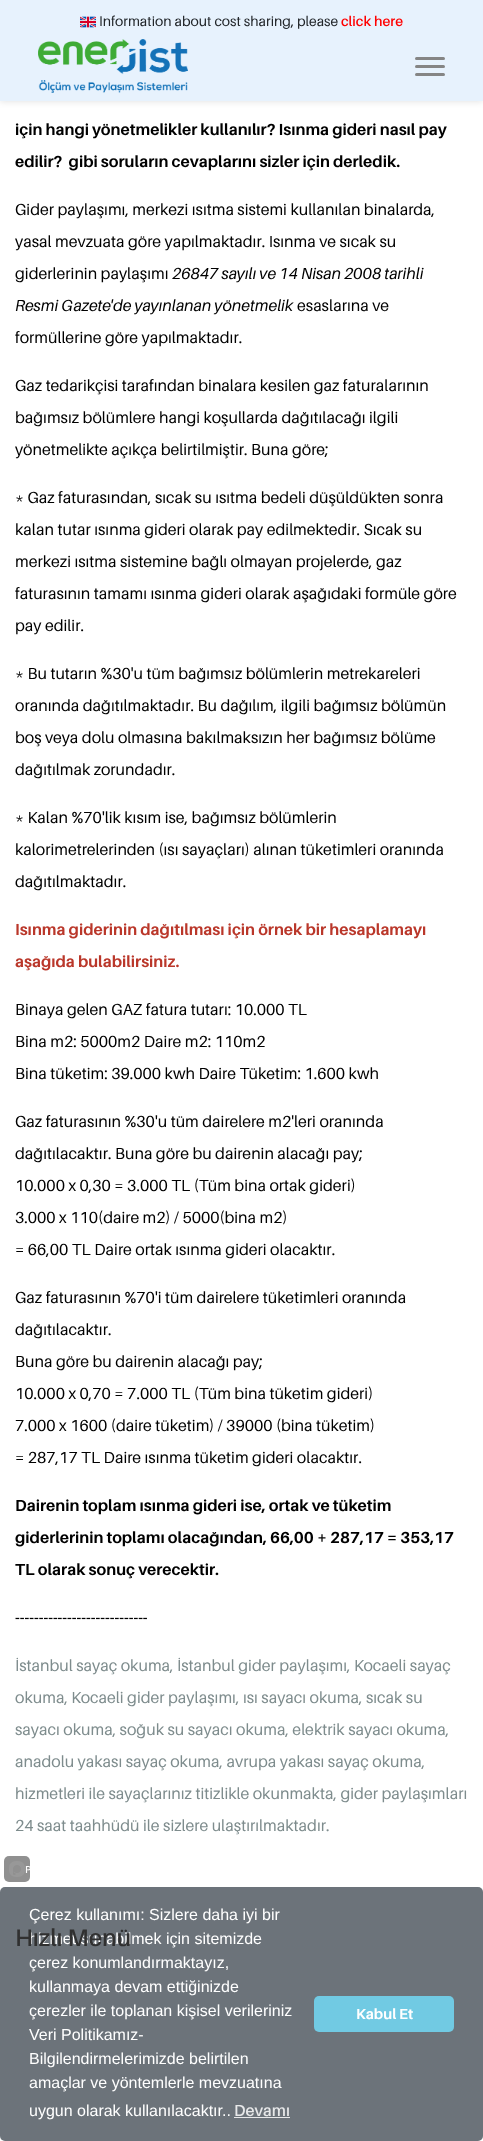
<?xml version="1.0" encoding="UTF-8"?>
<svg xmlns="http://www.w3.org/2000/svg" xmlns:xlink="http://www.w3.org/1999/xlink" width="483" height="2141">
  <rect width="100%" height="100%" fill="#ffffff" />
  <rect y="1" width="483" height="101" fill="#000000" fill-opacity="0.1" filter="blur(3px)" />
  <rect width="483" height="101" fill="#e7f2fd" />
  <image x="80" y="16" width="16" height="12" xlink:href="image1.png" />
  <image x="38" y="39" width="150" height="54" xlink:href="image2.png" />
  <rect x="415" y="57" width="30" height="3" rx="1.5" fill="#858585" />
  <rect x="415" y="65" width="30" height="3" rx="1.5" fill="#858585" />
  <rect x="415" y="73" width="30" height="3" rx="1.5" fill="#858585" />
  <rect y="1887" width="483" height="254" rx="5" fill="#6c737a" />
  <rect x="4" y="1856" width="26" height="26" rx="5" fill="#909090" />
  <image x="9" y="1861" width="16" height="16" xlink:href="image3.png" />
  <rect x="234" y="2117" width="56" height="1" fill="#e7e8e9" />
  <rect x="314" y="1996" width="140" height="36" rx="5" fill="#71cae3" />
  <text x="99" y="26" style="font-family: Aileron; font-size: 14px; fill: #212529">Information about cost sharing, please</text>
  <text x="341" y="26" style="font-family: Aileron; font-size: 14px; font-weight: 600; fill: #ff0000">click here</text>
  <text x="15" y="135" style="font-family: Aileron; font-size: 16px; font-weight: bold; fill: #000000">için hangi yönetmelikler kullanılır? Isınma gideri nasıl pay</text>
  <text x="15" y="167" style="font-family: Aileron; font-size: 16px; font-weight: bold; fill: #000000" xml:space="preserve">edilir?  gibi soruların cevaplarını sizler için derledik.</text>
  <text x="15" y="215" style="font-family: Aileron; font-size: 16px; fill: #000000">Gider paylaşımı, merkezi ısıtma sistemi kullanılan binalarda,</text>
  <text x="15" y="247" style="font-family: Aileron; font-size: 16px; fill: #000000">yasal mevzuata göre yapılmaktadır. Isınma ve sıcak su</text>
  <text x="15" y="279" style="font-family: Aileron; font-size: 16px; fill: #000000">giderlerinin paylaşımı</text>
  <text x="172" y="279" style="font-family: Aileron; font-size: 16px; font-style: italic; fill: #000000">26847 sayılı ve 14 Nisan 2008 tarihli</text>
  <text x="15" y="311" style="font-family: Aileron; font-size: 16px; font-style: italic; fill: #000000">Resmi Gazete'de yayınlanan yönetmelik</text>
  <text x="297" y="311" style="font-family: Aileron; font-size: 16px; fill: #000000">esaslarına ve</text>
  <text x="15" y="343" style="font-family: Aileron; font-size: 16px; fill: #000000">formüllerine göre yapılmaktadır.</text>
  <text x="15" y="391" style="font-family: Aileron; font-size: 16px; fill: #000000">Gaz tedarikçisi tarafından binalara kesilen gaz faturalarının</text>
  <text x="15" y="423" style="font-family: Aileron; font-size: 16px; fill: #000000">bağımsız bölümlere hangi koşullarda dağıtılacağı ilgili</text>
  <text x="15" y="455" style="font-family: Aileron; font-size: 16px; fill: #000000">yönetmelikte açıkça belirtilmiştir. Buna göre;</text>
  <text x="15" y="503" style="font-family: Aileron; font-size: 16px; fill: #000000">* Gaz faturasından, sıcak su ısıtma bedeli düşüldükten sonra</text>
  <text x="15" y="535" style="font-family: Aileron; font-size: 16px; fill: #000000">kalan tutar ısınma gideri olarak pay edilmektedir. Sıcak su</text>
  <text x="15" y="567" style="font-family: Aileron; font-size: 16px; fill: #000000">merkezi ısıtma sistemine bağlı olmayan projelerde, gaz</text>
  <text x="15" y="599" style="font-family: Aileron; font-size: 16px; fill: #000000">faturasının tamamı ısınma gideri olarak aşağıdaki formüle göre</text>
  <text x="15" y="631" style="font-family: Aileron; font-size: 16px; fill: #000000">pay edilir.</text>
  <text x="15" y="679" style="font-family: Aileron; font-size: 16px; fill: #000000">* Bu tutarın %30'u tüm bağımsız bölümlerin metrekareleri</text>
  <text x="15" y="711" style="font-family: Aileron; font-size: 16px; fill: #000000">oranında dağıtılmaktadır. Bu dağılım, ilgili bağımsız bölümün</text>
  <text x="15" y="743" style="font-family: Aileron; font-size: 16px; fill: #000000">boş veya dolu olmasına bakılmaksızın her bağımsız bölüme</text>
  <text x="15" y="775" style="font-family: Aileron; font-size: 16px; fill: #000000">dağıtılmak zorundadır.</text>
  <text x="15" y="823" style="font-family: Aileron; font-size: 16px; fill: #000000">* Kalan %70'lik kısım ise, bağımsız bölümlerin</text>
  <text x="15" y="855" style="font-family: Aileron; font-size: 16px; fill: #000000">kalorimetrelerinden (ısı sayaçları) alınan tüketimleri oranında</text>
  <text x="15" y="887" style="font-family: Aileron; font-size: 16px; fill: #000000">dağıtılmaktadır.</text>
  <text x="15" y="935" style="font-family: Aileron; font-size: 16px; font-weight: bold; fill: #ba372a">Isınma giderinin dağıtılması için örnek bir hesaplamayı</text>
  <text x="15" y="967" style="font-family: Aileron; font-size: 16px; font-weight: bold; fill: #ba372a">aşağıda bulabilirsiniz.</text>
  <text x="15" y="1015" style="font-family: Aileron; font-size: 16px; fill: #000000">Binaya gelen GAZ fatura tutarı: 10.000 TL</text>
  <text x="15" y="1047" style="font-family: Aileron; font-size: 16px; fill: #000000">Bina m2: 5000m2 Daire m2: 110m2</text>
  <text x="15" y="1079" style="font-family: Aileron; font-size: 16px; fill: #000000">Bina tüketim: 39.000 kwh Daire Tüketim: 1.600 kwh</text>
  <text x="15" y="1127" style="font-family: Aileron; font-size: 16px; fill: #000000">Gaz faturasının %30'u tüm dairelere m2'leri oranında</text>
  <text x="15" y="1159" style="font-family: Aileron; font-size: 16px; fill: #000000">dağıtılacaktır. Buna göre bu dairenin alacağı pay;</text>
  <text x="15" y="1191" style="font-family: Aileron; font-size: 16px; fill: #000000">10.000 x 0,30 = 3.000 TL (Tüm bina ortak gideri)</text>
  <text x="15" y="1223" style="font-family: Aileron; font-size: 16px; fill: #000000">3.000 x 110(daire m2) / 5000(bina m2)</text>
  <text x="15" y="1255" style="font-family: Aileron; font-size: 16px; fill: #000000">= 66,00 TL Daire ortak ısınma gideri olacaktır.</text>
  <text x="15" y="1303" style="font-family: Aileron; font-size: 16px; fill: #000000">Gaz faturasının %70'i tüm dairelere tüketimleri oranında</text>
  <text x="15" y="1335" style="font-family: Aileron; font-size: 16px; fill: #000000">dağıtılacaktır.</text>
  <text x="15" y="1367" style="font-family: Aileron; font-size: 16px; fill: #000000">Buna göre bu dairenin alacağı pay;</text>
  <text x="15" y="1399" style="font-family: Aileron; font-size: 16px; fill: #000000">10.000 x 0,70 = 7.000 TL (Tüm bina tüketim gideri)</text>
  <text x="15" y="1431" style="font-family: Aileron; font-size: 16px; fill: #000000">7.000 x 1600 (daire tüketim) / 39000 (bina tüketim)</text>
  <text x="15" y="1463" style="font-family: Aileron; font-size: 16px; fill: #000000">= 287,17 TL Daire ısınma tüketim gideri olacaktır.</text>
  <text x="15" y="1511" style="font-family: Aileron; font-size: 16px; font-weight: bold; fill: #000000">Dairenin toplam ısınma gideri ise, ortak ve tüketim</text>
  <text x="15" y="1543" style="font-family: Aileron; font-size: 16px; font-weight: bold; fill: #000000">giderlerinin toplamı olacağından, 66,00 + 287,17 = 353,17</text>
  <text x="15" y="1575" style="font-family: Aileron; font-size: 16px; font-weight: bold; fill: #000000">TL olarak sonuç verecektir.</text>
  <text x="15" y="1623" style="font-family: Aileron; font-size: 16px; font-weight: bold; fill: #000000">----------------------------</text>
  <text x="15" y="1671" style="font-family: Aileron; font-size: 16px; fill: #7e8c8d">İstanbul sayaç okuma, İstanbul gider paylaşımı, Kocaeli sayaç</text>
  <text x="15" y="1703" style="font-family: Aileron; font-size: 16px; fill: #7e8c8d">okuma, Kocaeli gider paylaşımı, ısı sayacı okuma, sıcak su</text>
  <text x="15" y="1735" style="font-family: Aileron; font-size: 16px; fill: #7e8c8d">sayacı okuma, soğuk su sayacı okuma, elektrik sayacı okuma,</text>
  <text x="15" y="1767" style="font-family: Aileron; font-size: 16px; fill: #7e8c8d">anadolu yakası sayaç okuma, avrupa yakası sayaç okuma,</text>
  <text x="15" y="1799" style="font-family: Aileron; font-size: 16px; fill: #7e8c8d">hizmetleri ile sayaçlarınız titizlikle okunmakta, gider paylaşımları</text>
  <text x="15" y="1831" style="font-family: Aileron; font-size: 16px; fill: #7e8c8d">24 saat taahhüdü ile sizlere ulaştırılmaktadır.</text>
  <text x="25" y="1873" style="font-family: Aileron; font-size: 10px; font-weight: 600; fill: #ffffff">P</text>
  <text x="29" y="1920" style="font-family: Liberation Sans; font-size: 16px; fill: #ffffff">Çerez kullanımı: Sizlere daha iyi bir</text>
  <text x="29" y="1944" style="font-family: Liberation Sans; font-size: 16px; fill: #ffffff">hizmet sunabilmek için sitemizde</text>
  <text x="29" y="1968" style="font-family: Liberation Sans; font-size: 16px; fill: #ffffff">çerez konumlandırmaktayız,</text>
  <text x="29" y="1992" style="font-family: Liberation Sans; font-size: 16px; fill: #ffffff">kullanmaya devam ettiğinizde</text>
  <text x="29" y="2016" style="font-family: Liberation Sans; font-size: 16px; fill: #ffffff">çerezler ile toplanan kişisel verileriniz</text>
  <text x="29" y="2040" style="font-family: Liberation Sans; font-size: 16px; fill: #ffffff">Veri Politikamız-</text>
  <text x="29" y="2064" style="font-family: Liberation Sans; font-size: 16px; fill: #ffffff">Bilgilendirmelerimizde belirtilen</text>
  <text x="29" y="2088" style="font-family: Liberation Sans; font-size: 16px; fill: #ffffff">amaçlar ve yöntemlerle mevzuatına</text>
  <text x="29" y="2116" style="font-family: Liberation Sans; font-size: 16px; fill: #ffffff">uygun olarak kullanılacaktır..</text>
  <text x="234" y="2116" style="font-family: Aileron; font-size: 16px; font-weight: 600; fill: #e7e8e9">Devamı</text>
  <text x="356" y="2019" style="font-family: Aileron; font-size: 14.5px; font-weight: bold; fill: #ffffff">Kabul Et</text>
  <text x="15" y="1946" style="font-family: Aileron; font-size: 24px; font-weight: 600; fill: #303030">Hızlı Menü</text>
</svg>
